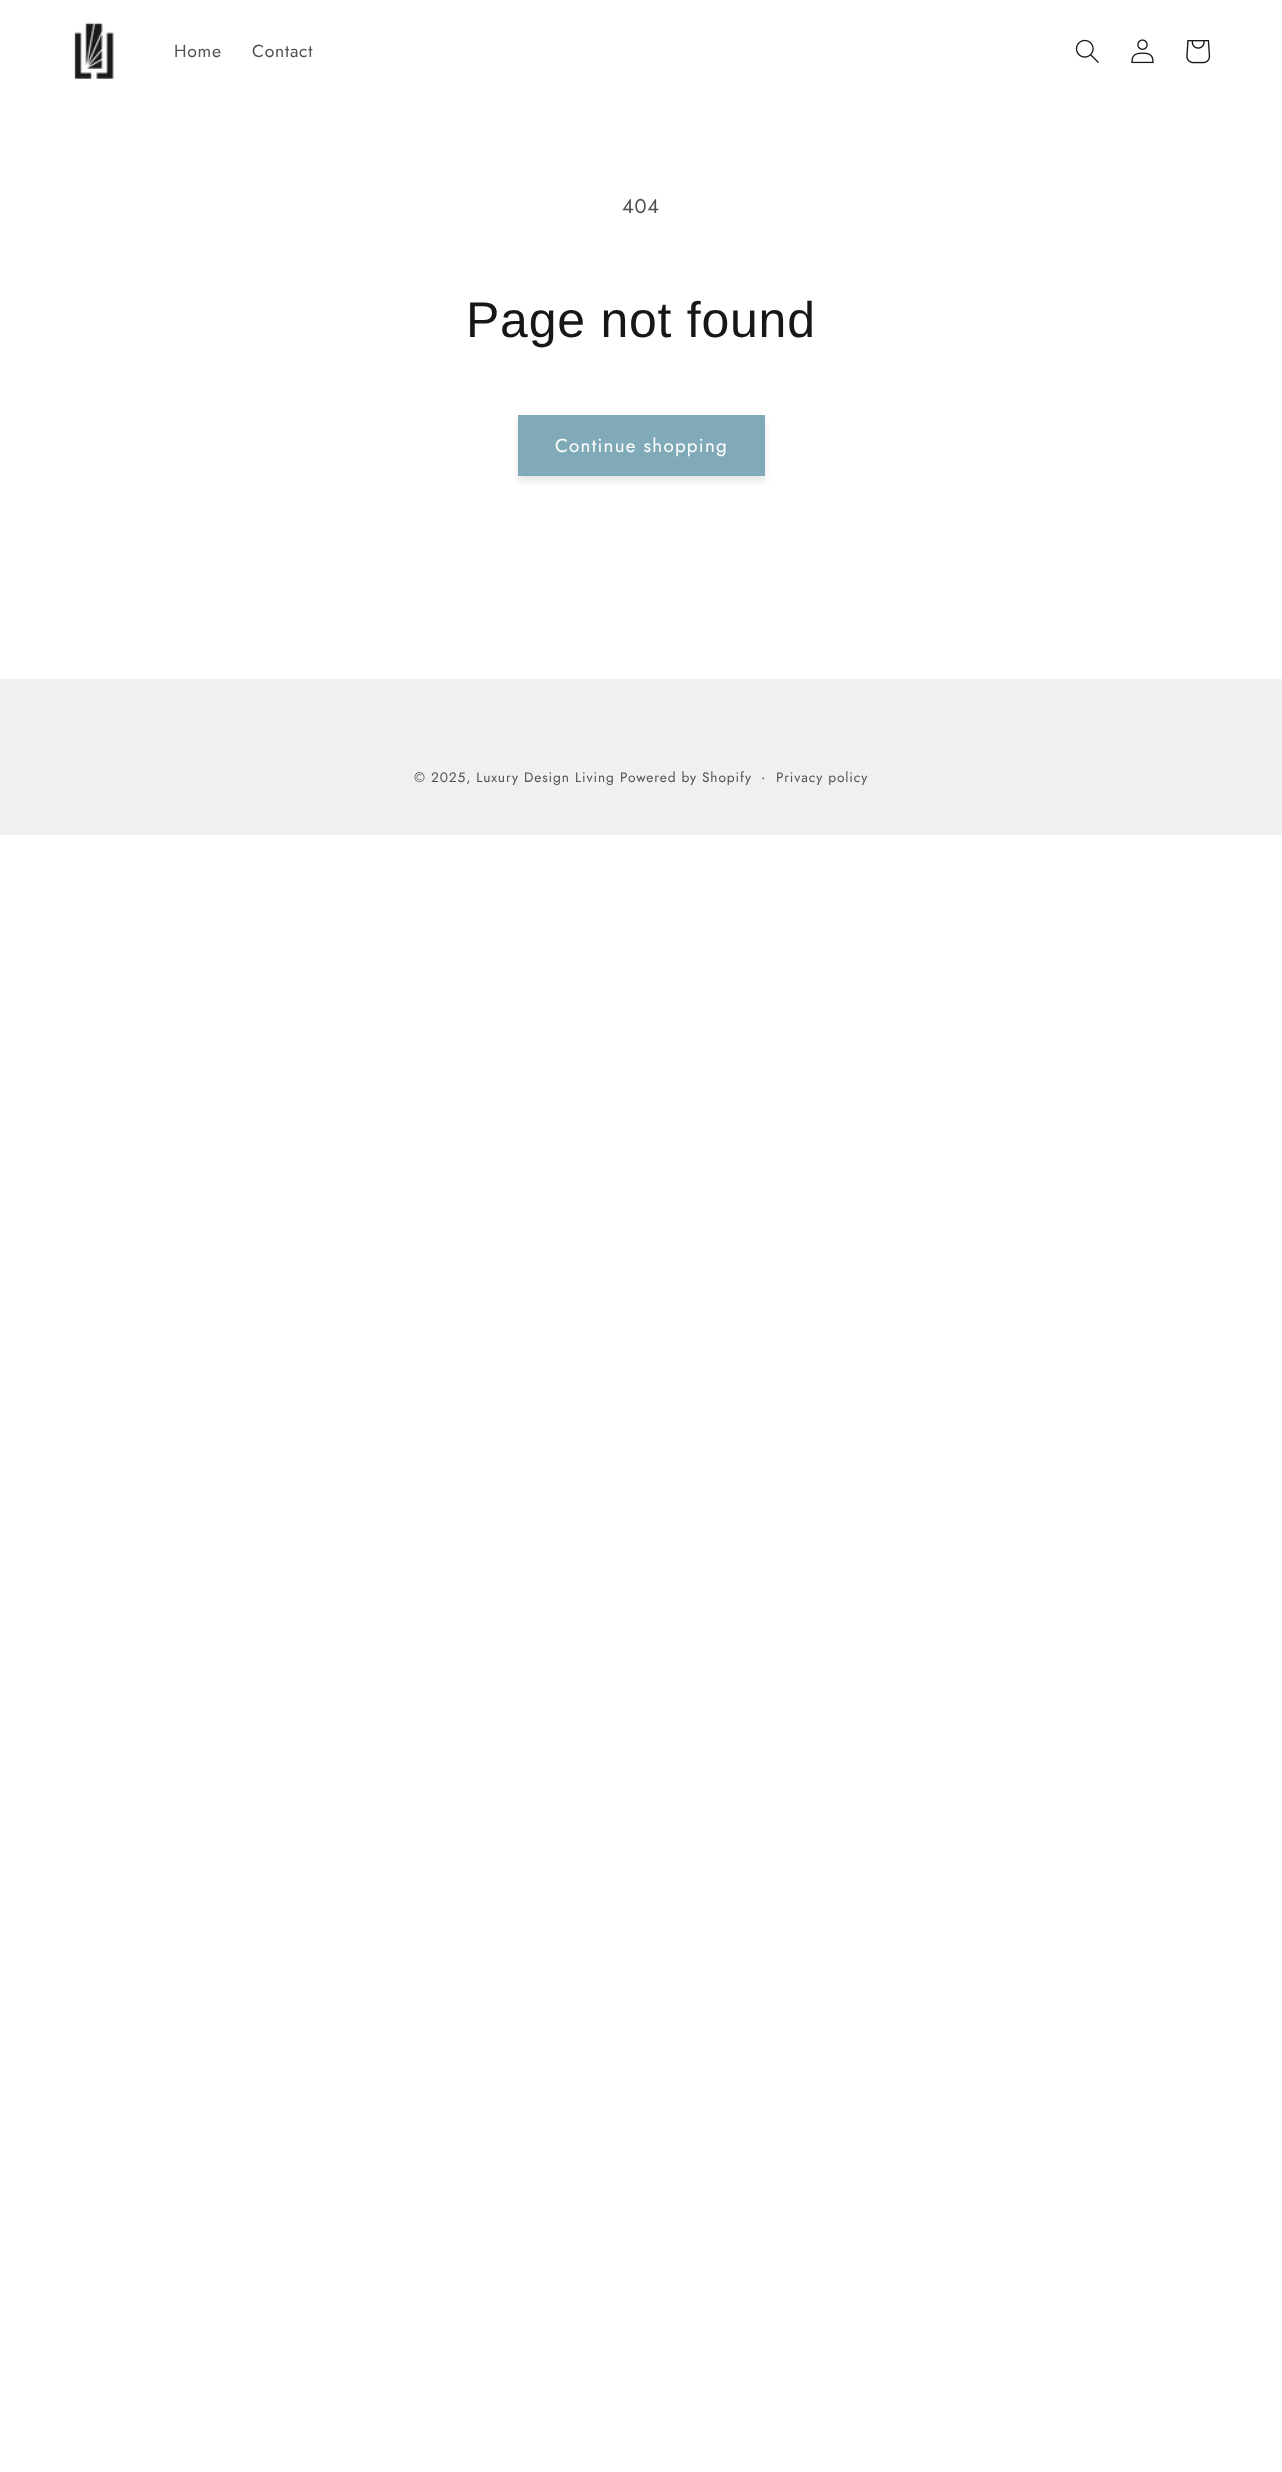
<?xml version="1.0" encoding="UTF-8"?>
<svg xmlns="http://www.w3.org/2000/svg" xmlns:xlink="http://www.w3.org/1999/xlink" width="1282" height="2472">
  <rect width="100%" height="100%" fill="#ffffff" />
  <image x="74" y="22" width="40" height="57" xlink:href="image1.png" />
  <image x="1075" y="39" width="24" height="24" xlink:href="image2.png" />
  <image x="1131" y="39" width="23" height="25" xlink:href="image3.png" />
  <image x="1186" y="40" width="25" height="24" xlink:href="image4.png" />
  <rect x="518" y="420" width="247" height="61" fill="#000000" fill-opacity="0.1" filter="blur(3px)" />
  <rect x="518" y="415" width="247" height="61" fill="#80aab7" />
  <rect y="679" width="1282" height="156" fill="#f0f0f0" />
  <text x="174" y="57" style="font-family: Jost; font-size: 17.5px; letter-spacing: 0.75px; fill: #515151">Home</text>
  <text x="252" y="57" style="font-family: Jost; font-size: 17.5px; letter-spacing: 0.75px; fill: #515151">Contact</text>
  <text x="622" y="213" style="font-family: Jost; font-size: 20px; letter-spacing: 0.75px; fill: #515151">404</text>
  <text x="466" y="337" style="font-family: Arimo; font-size: 50px; letter-spacing: 0.75px; fill: #171717">Page not found</text>
  <text x="555" y="452" style="font-family: Jost; font-size: 18.75px; letter-spacing: 1.25px; fill: #ffffff">Continue shopping</text>
  <text x="414" y="782" style="font-family: Jost; font-size: 13.75px; letter-spacing: 0.9px; fill: #515151">© 2025, Luxury Design Living</text>
  <text x="620" y="782" style="font-family: Jost; font-size: 13.75px; letter-spacing: 0.9px; fill: #515151">Powered by Shopify</text>
  <text x="761" y="782" style="font-family: Jost; font-size: 15px; letter-spacing: 0.9px; fill: #515151">·</text>
  <text x="776" y="782" style="font-family: Jost; font-size: 13.75px; letter-spacing: 0.9px; fill: #515151">Privacy policy</text>
</svg>
